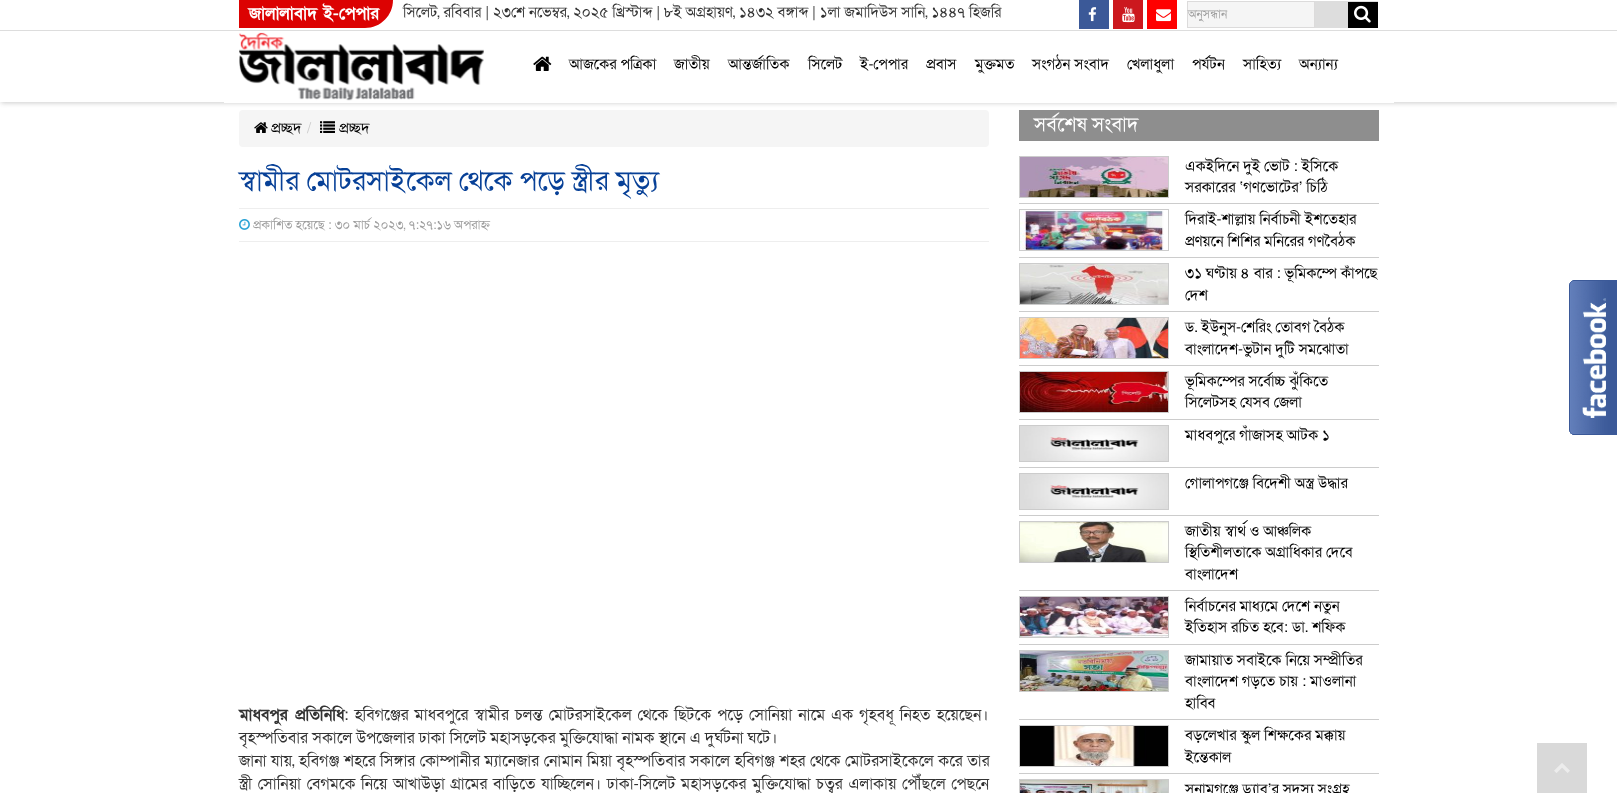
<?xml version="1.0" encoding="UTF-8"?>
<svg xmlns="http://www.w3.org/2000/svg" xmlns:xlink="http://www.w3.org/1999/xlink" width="1617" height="793">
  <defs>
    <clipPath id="clip1"><rect x="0" y="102" width="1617" height="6" /></clipPath>
  </defs>
  <rect width="100%" height="100%" fill="#ffffff" />
  <rect x="239" y="110" width="750" height="37" rx="4" fill="#f5f5f5" />
  <rect x="1019" y="110" width="360" height="31" fill="#8e8e8e" />
  <g clip-path="url(#clip1)">
    <rect x="1" y="1" width="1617" height="102" fill="#cccccc" filter="blur(2.5px)" />
  </g>
  <rect y="30" width="1617" height="1" fill="#dddddd" />
  <path d="M 239 0 h 154 c 0 15.5 -12.5 28 -28 28 h -126 z" fill="#dc0202" />
  <rect x="1079" width="30" height="29" fill="#3b5998" />
  <image x="1088" y="7" width="9" height="15" xlink:href="image1.png" />
  <rect x="1113" width="30" height="29" fill="#cc181e" />
  <image x="1122" y="7" width="13" height="16" xlink:href="image2.png" />
  <rect x="1147" width="30" height="29" fill="#ff0000" />
  <image x="1156" y="9" width="15" height="13" xlink:href="image3.png" />
  <rect x="1315" y="1" width="63" height="27" fill="#dddddd" />
  <rect x="1187.5" y="1.5" width="127" height="26" fill="#f5f5f5" stroke="#dcdbdb" />
  <rect x="1348" y="2" width="30" height="26" fill="#000000" />
  <image x="1354" y="5" width="17" height="18" xlink:href="image4.png" />
  <rect x="224" y="102" width="1170" height="1" fill="#ffffff" />
  <image x="239" y="32" width="245" height="69" xlink:href="image5.png" />
  <image x="533" y="56" width="19" height="15" xlink:href="image6.png" />
  <image x="254" y="122" width="14" height="11" xlink:href="image7.png" />
  <image x="320" y="121" width="15" height="12" xlink:href="image8.png" />
  <rect x="239" y="208" width="750" height="1" fill="#eeeeee" />
  <image x="239" y="219" width="11" height="11" xlink:href="image9.png" />
  <rect x="239" y="241" width="750" height="1" fill="#eeeeee" />
  <rect x="1019" y="203" width="360" height="1" fill="#cccccc" />
  <rect x="1019.5" y="156.5" width="149" height="41" fill="none" stroke="#cccccc" />
  <image x="1020" y="157" width="148" height="40" xlink:href="image10.png" />
  <rect x="1019" y="257" width="360" height="1" fill="#cccccc" />
  <rect x="1019.5" y="209.5" width="149" height="41" fill="none" stroke="#cccccc" />
  <image x="1020" y="210" width="144" height="40" xlink:href="image11.png" />
  <rect x="1019" y="311" width="360" height="1" fill="#cccccc" />
  <rect x="1019.5" y="263.5" width="149" height="41" fill="none" stroke="#cccccc" />
  <image x="1020" y="264" width="148" height="40" xlink:href="image12.png" />
  <rect x="1019" y="365" width="360" height="1" fill="#cccccc" />
  <rect x="1019.5" y="317.5" width="149" height="41" fill="none" stroke="#cccccc" />
  <image x="1020" y="318" width="148" height="40" xlink:href="image13.png" />
  <rect x="1019" y="419" width="360" height="1" fill="#cccccc" />
  <rect x="1019.5" y="371.5" width="149" height="41" fill="none" stroke="#cccccc" />
  <image x="1020" y="372" width="148" height="40" xlink:href="image14.png" />
  <rect x="1019" y="467" width="360" height="1" fill="#cccccc" />
  <rect x="1019.5" y="425.5" width="149" height="36" fill="none" stroke="#cccccc" />
  <image x="1020" y="426" width="148" height="35" xlink:href="image15.png" />
  <rect x="1019" y="515" width="360" height="1" fill="#cccccc" />
  <rect x="1019.5" y="473.5" width="149" height="36" fill="none" stroke="#cccccc" />
  <image x="1020" y="474" width="148" height="35" xlink:href="image15.png" />
  <rect x="1019" y="590" width="360" height="1" fill="#cccccc" />
  <rect x="1019.5" y="521.5" width="149" height="41" fill="none" stroke="#cccccc" />
  <image x="1020" y="522" width="148" height="40" xlink:href="image16.png" />
  <rect x="1019" y="644" width="360" height="1" fill="#cccccc" />
  <rect x="1019.5" y="596.5" width="149" height="41" fill="none" stroke="#cccccc" />
  <image x="1020" y="597" width="148" height="40" xlink:href="image17.png" />
  <rect x="1019" y="719" width="360" height="1" fill="#cccccc" />
  <rect x="1019.5" y="650.5" width="149" height="41" fill="none" stroke="#cccccc" />
  <image x="1020" y="651" width="148" height="40" xlink:href="image18.png" />
  <rect x="1019" y="773" width="360" height="1" fill="#cccccc" />
  <rect x="1019.5" y="725.5" width="149" height="41" fill="none" stroke="#cccccc" />
  <image x="1020" y="726" width="148" height="40" xlink:href="image19.png" />
  <rect x="1019.5" y="779.5" width="149" height="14" fill="none" stroke="#cccccc" />
  <image x="1020" y="780" width="148" height="13" xlink:href="image20.png" />
  <image x="1569" y="280" width="48" height="155" xlink:href="image21.png" />
  <rect x="1537" y="743" width="50" height="50" fill="#d9d9d9" />
  <image x="1554" y="763" width="16" height="10" xlink:href="image22.png" />
  <text x="249" y="19" style="font-family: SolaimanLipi; font-size: 17px; font-weight: bold; fill: #ffffff">জালালাবাদ ই-পেপার</text>
  <text x="403" y="17" style="font-family: SolaimanLipi; font-size: 15px; fill: #333333">সিলেট, রবিবার | ২৩শে নভেম্বর, ২০২৫ খ্রিস্টাব্দ | ৮ই অগ্রহায়ণ, ১৪৩২ বঙ্গাব্দ | ১লা জমাদিউস সানি, ১৪৪৭ হিজরি</text>
  <text x="1188" y="18" style="font-family: SolaimanLipi; font-size: 12px; fill: #9e9e9e">অনুসন্ধান</text>
  <text x="569" y="69" style="font-family: SolaimanLipi; font-size: 15px; fill: #000000">আজকের পত্রিকা</text>
  <text x="674" y="69" style="font-family: SolaimanLipi; font-size: 15px; fill: #000000">জাতীয়</text>
  <text x="728" y="69" style="font-family: SolaimanLipi; font-size: 15px; fill: #000000">আন্তর্জাতিক</text>
  <text x="808" y="69" style="font-family: SolaimanLipi; font-size: 15px; fill: #000000">সিলেট</text>
  <text x="860" y="69" style="font-family: SolaimanLipi; font-size: 15px; fill: #000000">ই-পেপার</text>
  <text x="926" y="69" style="font-family: SolaimanLipi; font-size: 15px; fill: #000000">প্রবাস</text>
  <text x="975" y="69" style="font-family: SolaimanLipi; font-size: 15px; fill: #000000">মুক্তমত</text>
  <text x="1032" y="69" style="font-family: SolaimanLipi; font-size: 15px; fill: #000000">সংগঠন সংবাদ</text>
  <text x="1127" y="69" style="font-family: SolaimanLipi; font-size: 15px; fill: #000000">খেলাধুলা</text>
  <text x="1192" y="69" style="font-family: SolaimanLipi; font-size: 15px; fill: #000000">পর্যটন</text>
  <text x="1243" y="69" style="font-family: SolaimanLipi; font-size: 15px; fill: #000000">সাহিত্য</text>
  <text x="1299" y="69" style="font-family: SolaimanLipi; font-size: 15px; fill: #000000">অন্যান্য</text>
  <text x="271" y="133" style="font-family: SolaimanLipi; font-size: 15px; fill: #000000">প্রচ্ছদ</text>
  <text x="307" y="133" style="font-family: SolaimanLipi; font-size: 15px; fill: #cccccc">/</text>
  <text x="339" y="133" style="font-family: SolaimanLipi; font-size: 15px; fill: #000000">প্রচ্ছদ</text>
  <text x="239" y="190" style="font-family: SolaimanLipi; font-size: 28px; fill: #074097">স্বামীর মোটরসাইকেল থেকে পড়ে স্ত্রীর মৃত্যু</text>
  <text x="253" y="229" style="font-family: SolaimanLipi; font-size: 12.75px; fill: #9e9e9e">প্রকাশিত হয়েছে : ৩০ মার্চ ২০২৩, ৭:২৭:১৬ অপরাহ্ন</text>
  <text x="239" y="720" word-spacing="1.9" style="font-family: SolaimanLipi; font-size: 16px; font-weight: bold; fill: #333333">মাধবপুর প্রতিনিধি</text>
  <text x="344" y="720" word-spacing="1.9" style="font-family: SolaimanLipi; font-size: 16px; fill: #333333">: হবিগঞ্জের মাধবপুরে স্বামীর চলন্ত মোটরসাইকেল থেকে ছিটকে পড়ে সোনিয়া নামে এক গৃহবধূ নিহত হয়েছেন।</text>
  <text x="239" y="743" style="font-family: SolaimanLipi; font-size: 16px; fill: #333333">বৃহস্পতিবার সকালে উপজেলার ঢাকা সিলেট মহাসড়কের মুক্তিযোদ্ধা নামক স্থানে এ দুর্ঘটনা ঘটে।</text>
  <text x="239" y="766" word-spacing="0.4" style="font-family: SolaimanLipi; font-size: 16px; fill: #333333">জানা যায়, হবিগঞ্জ শহরে সিঙ্গার কোম্পানীর ম্যানেজার নোমান মিয়া বৃহস্পতিবার সকালে হবিগঞ্জ শহর থেকে মোটরসাইকেলে করে তার</text>
  <text x="239" y="789" word-spacing="1.6" style="font-family: SolaimanLipi; font-size: 16px; fill: #333333">স্ত্রী সোনিয়া বেগমকে নিয়ে আখাউড়া গ্রামের বাড়িতে যাচ্ছিলেন। ঢাকা-সিলেট মহাসড়কের মুক্তিযোদ্ধা চত্বর এলাকায় পৌঁছলে পেছনে</text>
  <text x="1034" y="131" style="font-family: SolaimanLipi; font-size: 20px; fill: #ffffff">সর্বশেষ সংবাদ</text>
  <text x="1185" y="171" style="font-family: SolaimanLipi; font-size: 15px; fill: #000000">একইদিনে দুই ভোট : ইসিকে</text>
  <text x="1185" y="192" style="font-family: SolaimanLipi; font-size: 15px; fill: #000000">সরকারের ‘গণভোটের’ চিঠি</text>
  <text x="1185" y="224" style="font-family: SolaimanLipi; font-size: 15px; fill: #000000">দিরাই-শাল্লায় নির্বাচনী ইশতেহার</text>
  <text x="1185" y="246" style="font-family: SolaimanLipi; font-size: 15px; fill: #000000">প্রণয়নে শিশির মনিরের গণবৈঠক</text>
  <text x="1185" y="278" style="font-family: SolaimanLipi; font-size: 15px; fill: #000000">৩১ ঘণ্টায় ৪ বার : ভূমিকম্পে কাঁপছে</text>
  <text x="1185" y="300" style="font-family: SolaimanLipi; font-size: 15px; fill: #000000">দেশ</text>
  <text x="1185" y="332" style="font-family: SolaimanLipi; font-size: 15px; fill: #000000">ড. ইউনুস-শেরিং তোবগ বৈঠক</text>
  <text x="1185" y="354" style="font-family: SolaimanLipi; font-size: 15px; fill: #000000">বাংলাদেশ-ভুটান দুটি সমঝোতা</text>
  <text x="1185" y="386" style="font-family: SolaimanLipi; font-size: 15px; fill: #000000">ভূমিকম্পের সর্বোচ্চ ঝুঁকিতে</text>
  <text x="1185" y="407" style="font-family: SolaimanLipi; font-size: 15px; fill: #000000">সিলেটসহ যেসব জেলা</text>
  <text x="1185" y="440" style="font-family: SolaimanLipi; font-size: 15px; fill: #000000">মাধবপুরে গাঁজাসহ আটক ১</text>
  <text x="1185" y="488" style="font-family: SolaimanLipi; font-size: 15px; fill: #000000">গোলাপগঞ্জে বিদেশী অস্ত্র উদ্ধার</text>
  <text x="1185" y="536" style="font-family: SolaimanLipi; font-size: 15px; fill: #000000">জাতীয় স্বার্থ ও আঞ্চলিক</text>
  <text x="1185" y="557" style="font-family: SolaimanLipi; font-size: 15px; fill: #000000">স্থিতিশীলতাকে অগ্রাধিকার দেবে</text>
  <text x="1185" y="579" style="font-family: SolaimanLipi; font-size: 15px; fill: #000000">বাংলাদেশ</text>
  <text x="1185" y="611" style="font-family: SolaimanLipi; font-size: 15px; fill: #000000">নির্বাচনের মাধ্যমে দেশে নতুন</text>
  <text x="1185" y="632" style="font-family: SolaimanLipi; font-size: 15px; fill: #000000">ইতিহাস রচিত হবে: ডা. শফিক</text>
  <text x="1185" y="665" style="font-family: SolaimanLipi; font-size: 15px; fill: #000000">জামায়াত সবাইকে নিয়ে সম্প্রীতির</text>
  <text x="1185" y="686" style="font-family: SolaimanLipi; font-size: 15px; fill: #000000">বাংলাদেশ গড়তে চায় : মাওলানা</text>
  <text x="1185" y="708" style="font-family: SolaimanLipi; font-size: 15px; fill: #000000">হাবিব</text>
  <text x="1185" y="740" style="font-family: SolaimanLipi; font-size: 15px; fill: #000000">বড়লেখার স্কুল শিক্ষকের মক্কায়</text>
  <text x="1185" y="762" style="font-family: SolaimanLipi; font-size: 15px; fill: #000000">ইন্তেকাল</text>
  <text x="1185" y="794" style="font-family: SolaimanLipi; font-size: 15px; fill: #000000">সুনামগঞ্জে ড্যাব’র সদস্য সংগ্রহ</text>
</svg>
